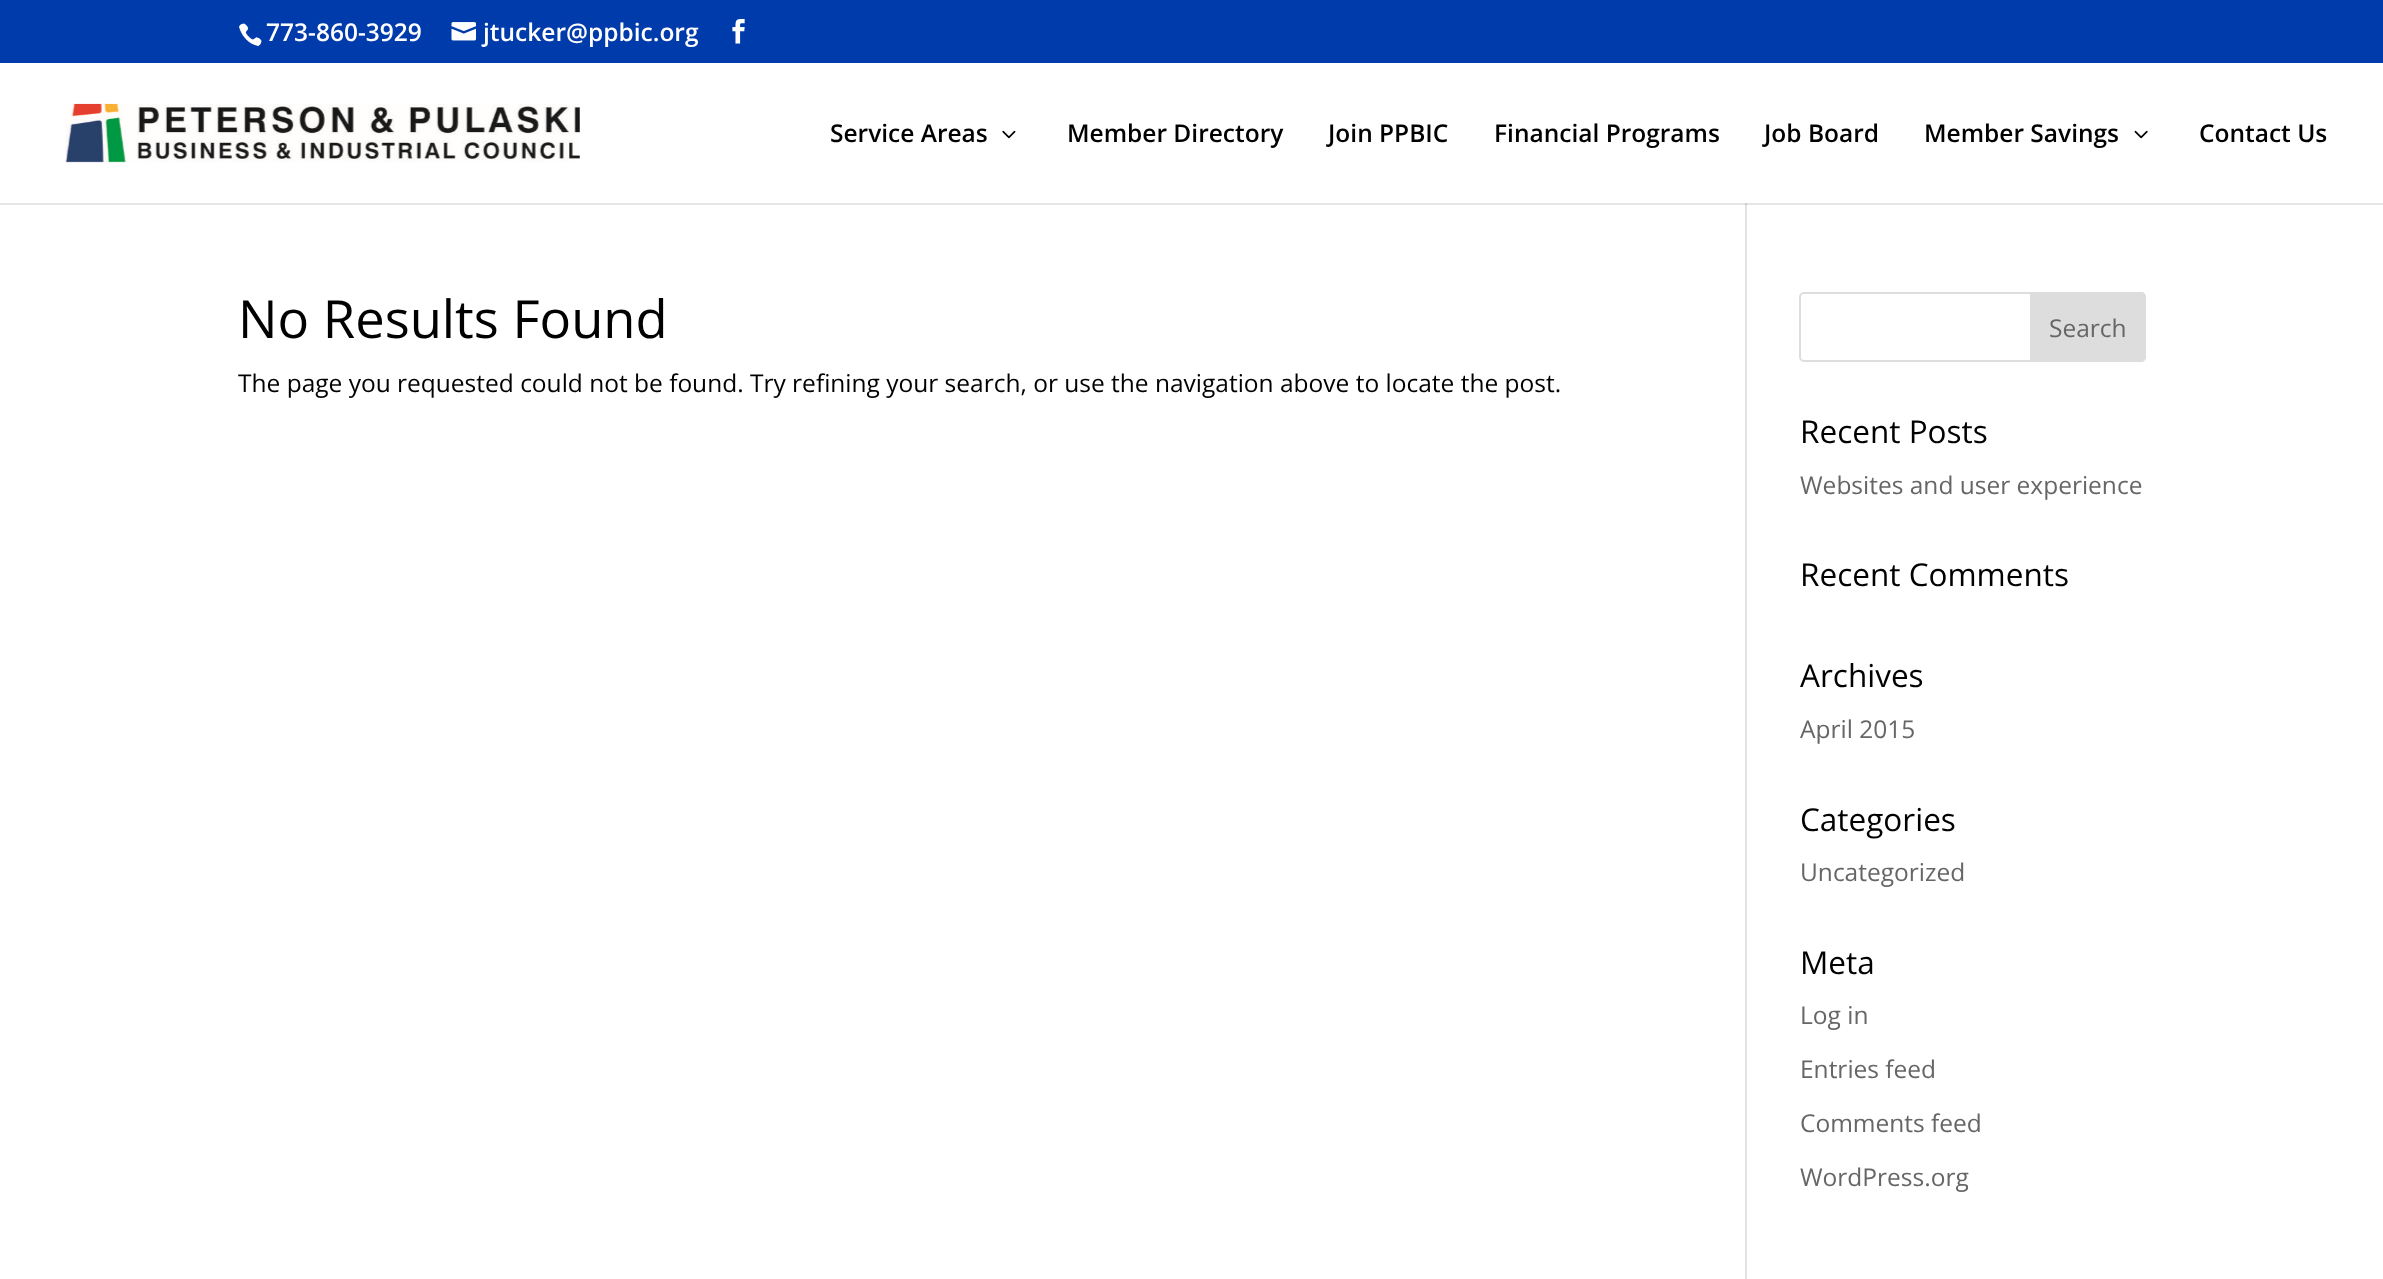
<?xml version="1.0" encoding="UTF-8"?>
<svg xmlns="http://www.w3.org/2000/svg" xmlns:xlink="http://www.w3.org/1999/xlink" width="2383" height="1279">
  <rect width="100%" height="100%" fill="#ffffff" />
  <rect width="2383" height="63" fill="#003bab" />
  <image x="239" y="23" width="23" height="23" xlink:href="image1.png" />
  <image x="451" y="22" width="25" height="19" xlink:href="image2.png" />
  <image x="732" y="19" width="13" height="25" xlink:href="image3.png" />
  <rect x="1745" y="203" width="2" height="1076" fill="#e2e2e2" />
  <path d="M 0 203 v 2 h 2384 v -140 v 138 z" fill="#000000" fill-opacity="0.1" />
  <image x="65" y="103" width="515" height="60" xlink:href="image4.png" />
  <image x="1002" y="130" width="14" height="9" xlink:href="image5.png" />
  <image x="2134" y="130" width="14" height="9" xlink:href="image6.png" />
  <rect x="1800" y="293" width="345" height="68" rx="4" fill="none" stroke="#dddddd" stroke-width="2" />
  <path d="M 2031 293 h 110 c 2 0 4 2 4 4 v 60 c 0 2 -2 4 -4 4 h -110 z" fill="#dddddd" stroke="#dddddd" stroke-width="2" />
  <text x="266" y="41" style="font-family: Open Sans; font-size: 24.5px; font-weight: 600; fill: #ffffff">773-860-3929</text>
  <text x="483" y="41" style="font-family: Open Sans; font-size: 24.5px; font-weight: 600; fill: #ffffff">jtucker@ppbic.org</text>
  <text x="830" y="142" style="font-family: Open Sans; font-size: 24.5px; font-weight: 600; fill: #000000">Service Areas</text>
  <text x="1067" y="142" style="font-family: Open Sans; font-size: 24.5px; font-weight: 600; fill: #000000">Member Directory</text>
  <text x="1328" y="142" style="font-family: Open Sans; font-size: 24.5px; font-weight: 600; fill: #000000">Join PPBIC</text>
  <text x="1494" y="142" style="font-family: Open Sans; font-size: 24.5px; font-weight: 600; fill: #000000">Financial Programs</text>
  <text x="1764" y="142" style="font-family: Open Sans; font-size: 24.5px; font-weight: 600; fill: #000000">Job Board</text>
  <text x="1924" y="142" style="font-family: Open Sans; font-size: 24.5px; font-weight: 600; fill: #000000">Member Savings</text>
  <text x="2199" y="142" style="font-family: Open Sans; font-size: 24.5px; font-weight: 600; fill: #000000">Contact Us</text>
  <text x="238" y="338" style="font-family: Open Sans; font-size: 52.5px; fill: #000000">No Results Found</text>
  <text x="238" y="392" style="font-family: Open Sans; font-size: 24.5px; fill: #000000">The page you requested could not be found. Try refining your search, or use the navigation above to locate the post.</text>
  <text x="2049" y="337" style="font-family: Open Sans; font-size: 24.5px; fill: #666666">Search</text>
  <text x="1800" y="443" style="font-family: Open Sans; font-size: 31.5px; fill: #000000">Recent Posts</text>
  <text x="1800" y="494" style="font-family: Open Sans; font-size: 24.5px; fill: #666666">Websites and user experience</text>
  <text x="1800" y="586" style="font-family: Open Sans; font-size: 31.5px; fill: #000000">Recent Comments</text>
  <text x="1800" y="687" style="font-family: Open Sans; font-size: 31.5px; fill: #000000">Archives</text>
  <text x="1800" y="738" style="font-family: Open Sans; font-size: 24.5px; fill: #666666">April 2015</text>
  <text x="1800" y="831" style="font-family: Open Sans; font-size: 31.5px; fill: #000000">Categories</text>
  <text x="1800" y="881" style="font-family: Open Sans; font-size: 24.5px; fill: #666666">Uncategorized</text>
  <text x="1800" y="974" style="font-family: Open Sans; font-size: 31.5px; fill: #000000">Meta</text>
  <text x="1800" y="1024" style="font-family: Open Sans; font-size: 24.5px; fill: #666666">Log in</text>
  <text x="1800" y="1078" style="font-family: Open Sans; font-size: 24.5px; fill: #666666">Entries feed</text>
  <text x="1800" y="1132" style="font-family: Open Sans; font-size: 24.5px; fill: #666666">Comments feed</text>
  <text x="1800" y="1186" style="font-family: Open Sans; font-size: 24.5px; fill: #666666">WordPress.org</text>
</svg>
